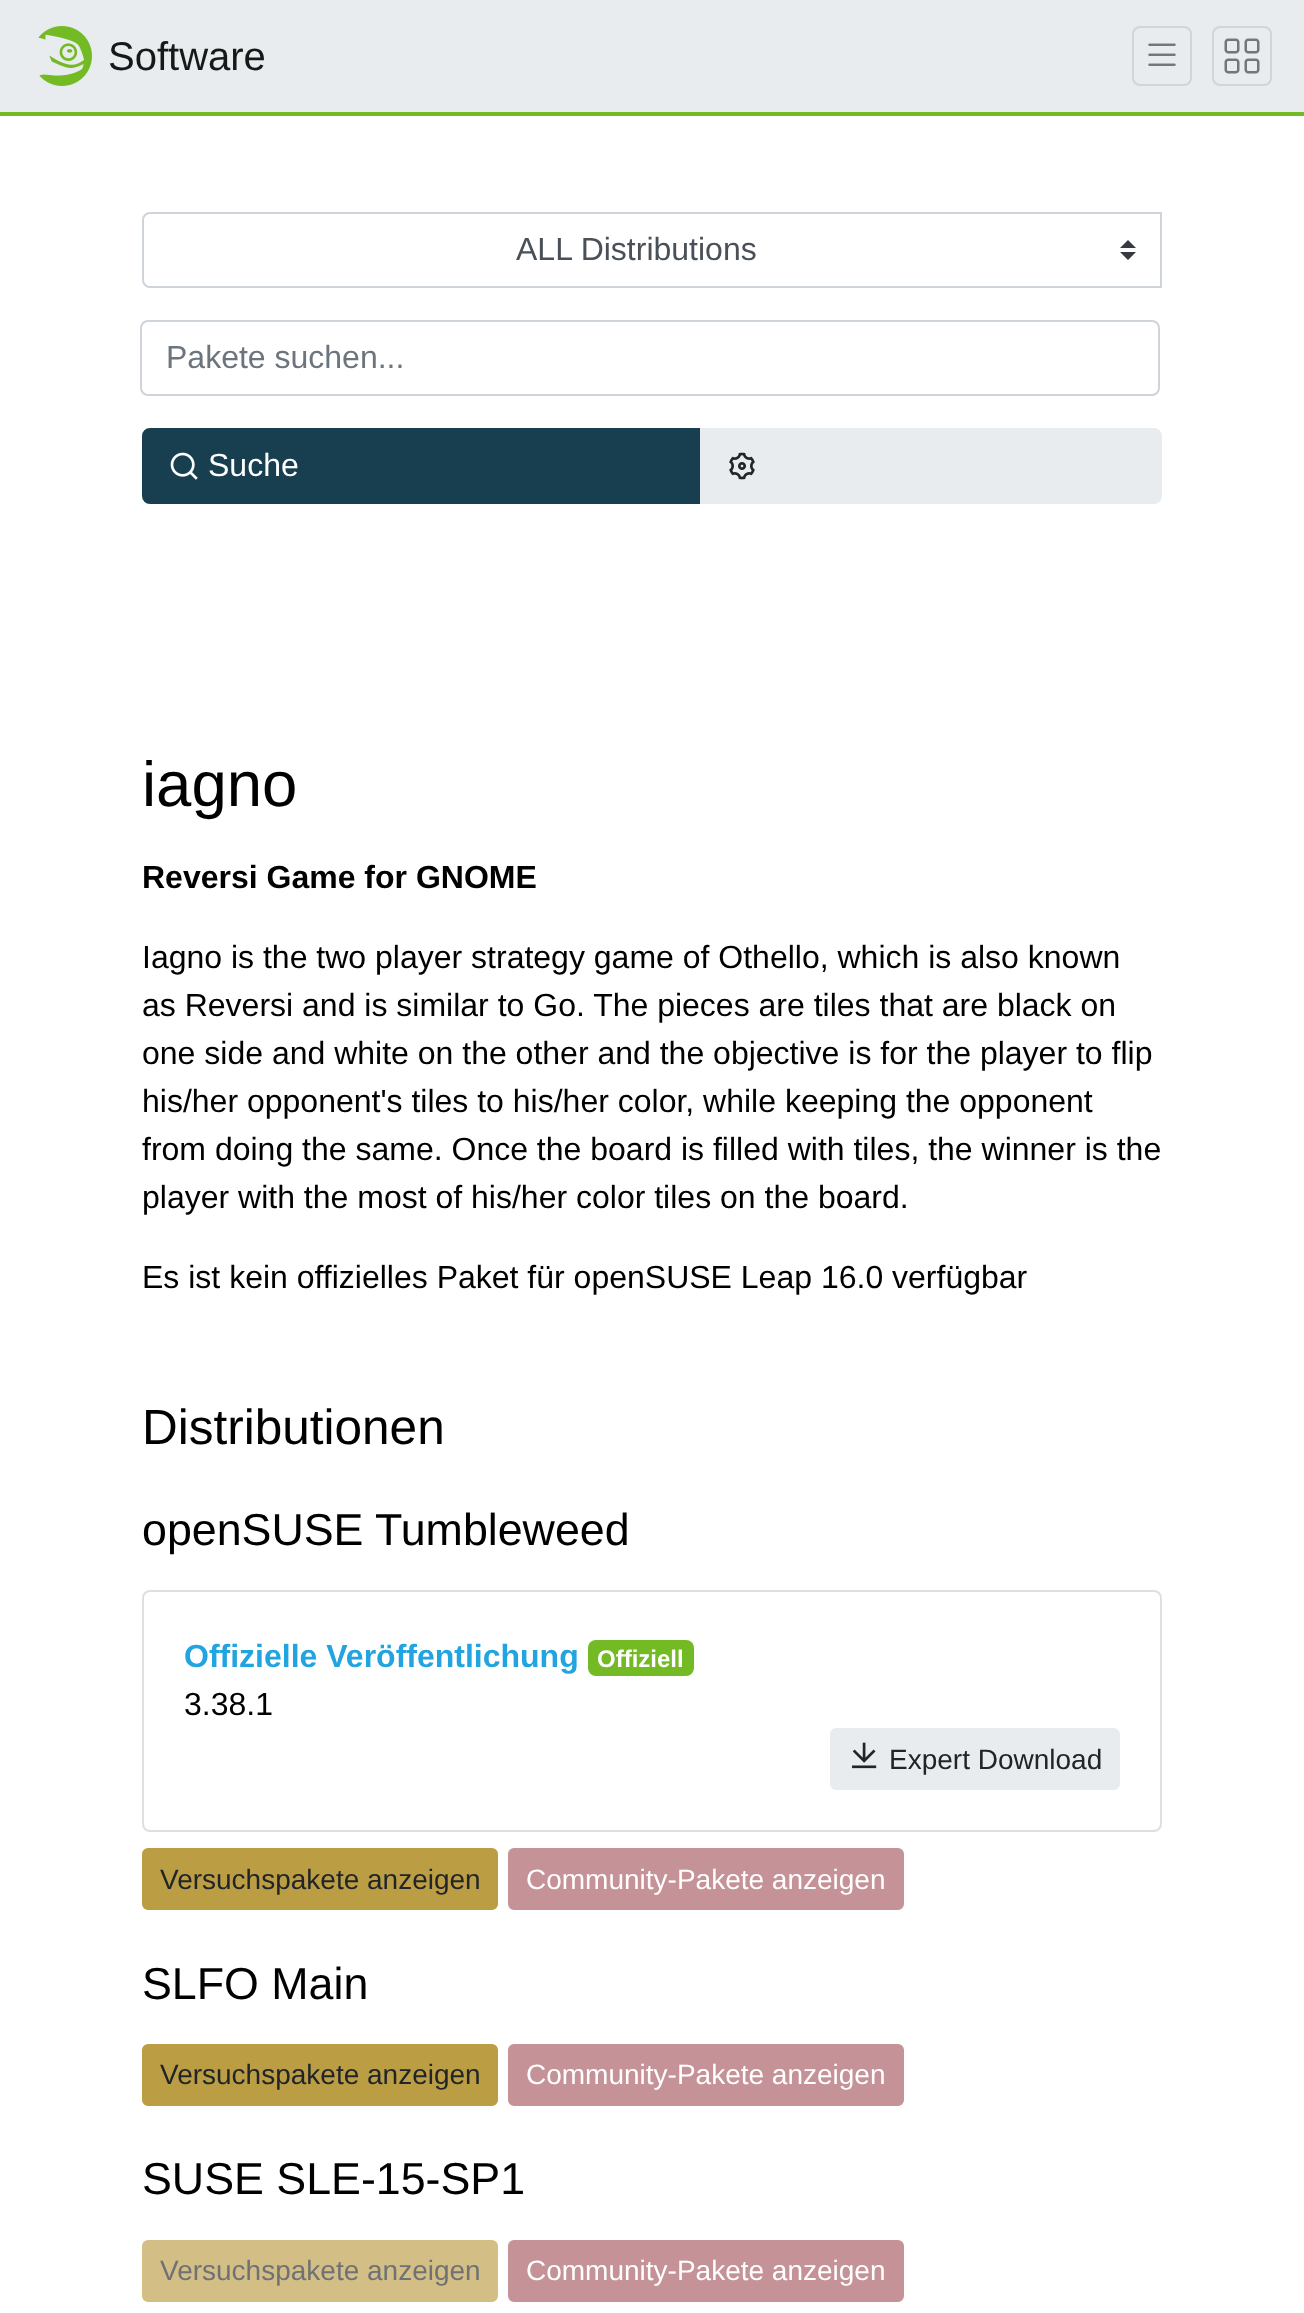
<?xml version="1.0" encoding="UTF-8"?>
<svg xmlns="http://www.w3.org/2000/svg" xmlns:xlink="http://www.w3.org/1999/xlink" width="1304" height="2313">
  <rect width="100%" height="100%" fill="#ffffff" />
  <rect width="1304" height="112" fill="#e9ecef" />
  <rect y="112" width="1304" height="4" fill="#73ba25" />
  <image x="38" y="26" width="54" height="60" xlink:href="image1.png" />
  <rect x="1133" y="27" width="58" height="58" rx="7" fill="none" stroke="#d2d4d7" stroke-width="2" />
  <image x="1148" y="43" width="28" height="23" xlink:href="image2.png" />
  <rect x="1213" y="27" width="58" height="58" rx="7" fill="none" stroke="#d2d4d7" stroke-width="2" />
  <image x="1224" y="38" width="36" height="36" xlink:href="image3.png" />
  <path d="M 1128 240 l -8 8 h 16 z m 0 20 l -8 -8 h 16 z" fill="#343a40" />
  <path d="M 150 213 h 1011 v 74 h -1011 c -4 0 -7 -3 -7 -7 v -60 c 0 -4 3 -7 7 -7 z" fill="none" stroke="#ced4da" stroke-width="2" />
  <rect x="141" y="321" width="1018" height="74" rx="7" fill="none" stroke="#ced4da" stroke-width="2" />
  <path d="M 150 429 h 551 v 74 h -551 c -4 0 -7 -3 -7 -7 v -60 c 0 -4 3 -7 7 -7 z" fill="#173f4f" stroke="#173f4f" stroke-width="2" />
  <image x="170" y="452" width="28" height="28" xlink:href="image4.png" />
  <path d="M 701 429 h 453 c 4 0 7 3 7 7 v 60 c 0 4 -3 7 -7 7 h -453 z" fill="#e9ecef" stroke="#e9ecef" stroke-width="2" />
  <image x="729" y="452" width="26" height="28" xlink:href="image5.png" />
  <rect x="143" y="1591" width="1018" height="240" rx="7" fill="none" stroke="#dfdfdf" stroke-width="2" />
  <rect x="588" y="1640" width="106" height="36" rx="8" fill="#73ba25" />
  <rect x="831" y="1729" width="288" height="60" rx="5" fill="#e9ecef" stroke="#e9ecef" stroke-width="2" />
  <image x="852" y="1742" width="25" height="27" xlink:href="image6.png" />
  <rect x="143" y="1849" width="354" height="60" rx="5" fill="#bb9d43" stroke="#bb9d43" stroke-width="2" />
  <rect x="509" y="1849" width="394" height="60" rx="5" fill="#c59298" stroke="#c59298" stroke-width="2" />
  <rect x="143" y="2045" width="354" height="60" rx="5" fill="#bb9d43" stroke="#bb9d43" stroke-width="2" />
  <rect x="509" y="2045" width="394" height="60" rx="5" fill="#c59298" stroke="#c59298" stroke-width="2" />
  <rect x="143" y="2241" width="354" height="60" rx="5" fill="#d3bf85" stroke="#d3bf85" stroke-width="2" />
  <rect x="509" y="2241" width="394" height="60" rx="5" fill="#c59298" stroke="#c59298" stroke-width="2" />
  <text x="108" y="70" style="font-family: Liberation Sans; font-size: 40px; fill: #171818">Software</text>
  <text x="516" y="260" style="font-family: Liberation Sans; font-size: 32px; fill: #495057">ALL Distributions</text>
  <text x="166" y="368" style="font-family: Liberation Sans; font-size: 32px; fill: #6c757d">Pakete suchen...</text>
  <text x="208" y="476" style="font-family: Liberation Sans; font-size: 32px; fill: #ffffff">Suche</text>
  <text x="142" y="806" style="font-family: Liberation Sans; font-size: 63.5px; fill: #000000">iagno</text>
  <text x="142" y="888" style="font-family: Liberation Sans; font-size: 32px; font-weight: bold; fill: #000000">Reversi Game for GNOME</text>
  <text x="142" y="968" style="font-family: Liberation Sans; font-size: 32px; fill: #000000">Iagno is the two player strategy game of Othello, which is also known</text>
  <text x="142" y="1016" style="font-family: Liberation Sans; font-size: 32px; fill: #000000">as Reversi and is similar to Go. The pieces are tiles that are black on</text>
  <text x="142" y="1064" style="font-family: Liberation Sans; font-size: 32px; fill: #000000">one side and white on the other and the objective is for the player to flip</text>
  <text x="142" y="1112" style="font-family: Liberation Sans; font-size: 32px; fill: #000000">his/her opponent's tiles to his/her color, while keeping the opponent</text>
  <text x="142" y="1160" style="font-family: Liberation Sans; font-size: 32px; fill: #000000">from doing the same. Once the board is filled with tiles, the winner is the</text>
  <text x="142" y="1208" style="font-family: Liberation Sans; font-size: 32px; fill: #000000">player with the most of his/her color tiles on the board.</text>
  <text x="142" y="1288" style="font-family: Liberation Sans; font-size: 32px; fill: #000000">Es ist kein offizielles Paket für openSUSE Leap 16.0 verfügbar</text>
  <text x="142" y="1444" style="font-family: Liberation Sans; font-size: 49.5px; fill: #000000">Distributionen</text>
  <text x="142" y="1545" style="font-family: Liberation Sans; font-size: 44.75px; fill: #000000">openSUSE Tumbleweed</text>
  <text x="184" y="1667" style="font-family: Liberation Sans; font-size: 32px; font-weight: bold; fill: #21a4df">Offizielle Veröffentlichung</text>
  <text x="597" y="1667" style="font-family: Liberation Sans; font-size: 24px; font-weight: bold; fill: #ffffff">Offiziell</text>
  <text x="184" y="1715" style="font-family: Liberation Sans; font-size: 32px; fill: #000000">3.38.1</text>
  <text x="889" y="1769" style="font-family: Liberation Sans; font-size: 28px; fill: #212529">Expert Download</text>
  <text x="160" y="1889" style="font-family: Liberation Sans; font-size: 28px; fill: #212529">Versuchspakete anzeigen</text>
  <text x="526" y="1889" style="font-family: Liberation Sans; font-size: 28px; fill: #ffffff">Community-Pakete anzeigen</text>
  <text x="142" y="1999" style="font-family: Liberation Sans; font-size: 44.75px; fill: #000000">SLFO Main</text>
  <text x="160" y="2084" style="font-family: Liberation Sans; font-size: 28px; fill: #212529">Versuchspakete anzeigen</text>
  <text x="526" y="2084" style="font-family: Liberation Sans; font-size: 28px; fill: #ffffff">Community-Pakete anzeigen</text>
  <text x="142" y="2194" style="font-family: Liberation Sans; font-size: 44.75px; fill: #000000">SUSE SLE-15-SP1</text>
  <text x="160" y="2280" style="font-family: Liberation Sans; font-size: 28px; fill: #6f7174">Versuchspakete anzeigen</text>
  <text x="526" y="2280" style="font-family: Liberation Sans; font-size: 28px; fill: #ffffff">Community-Pakete anzeigen</text>
</svg>
